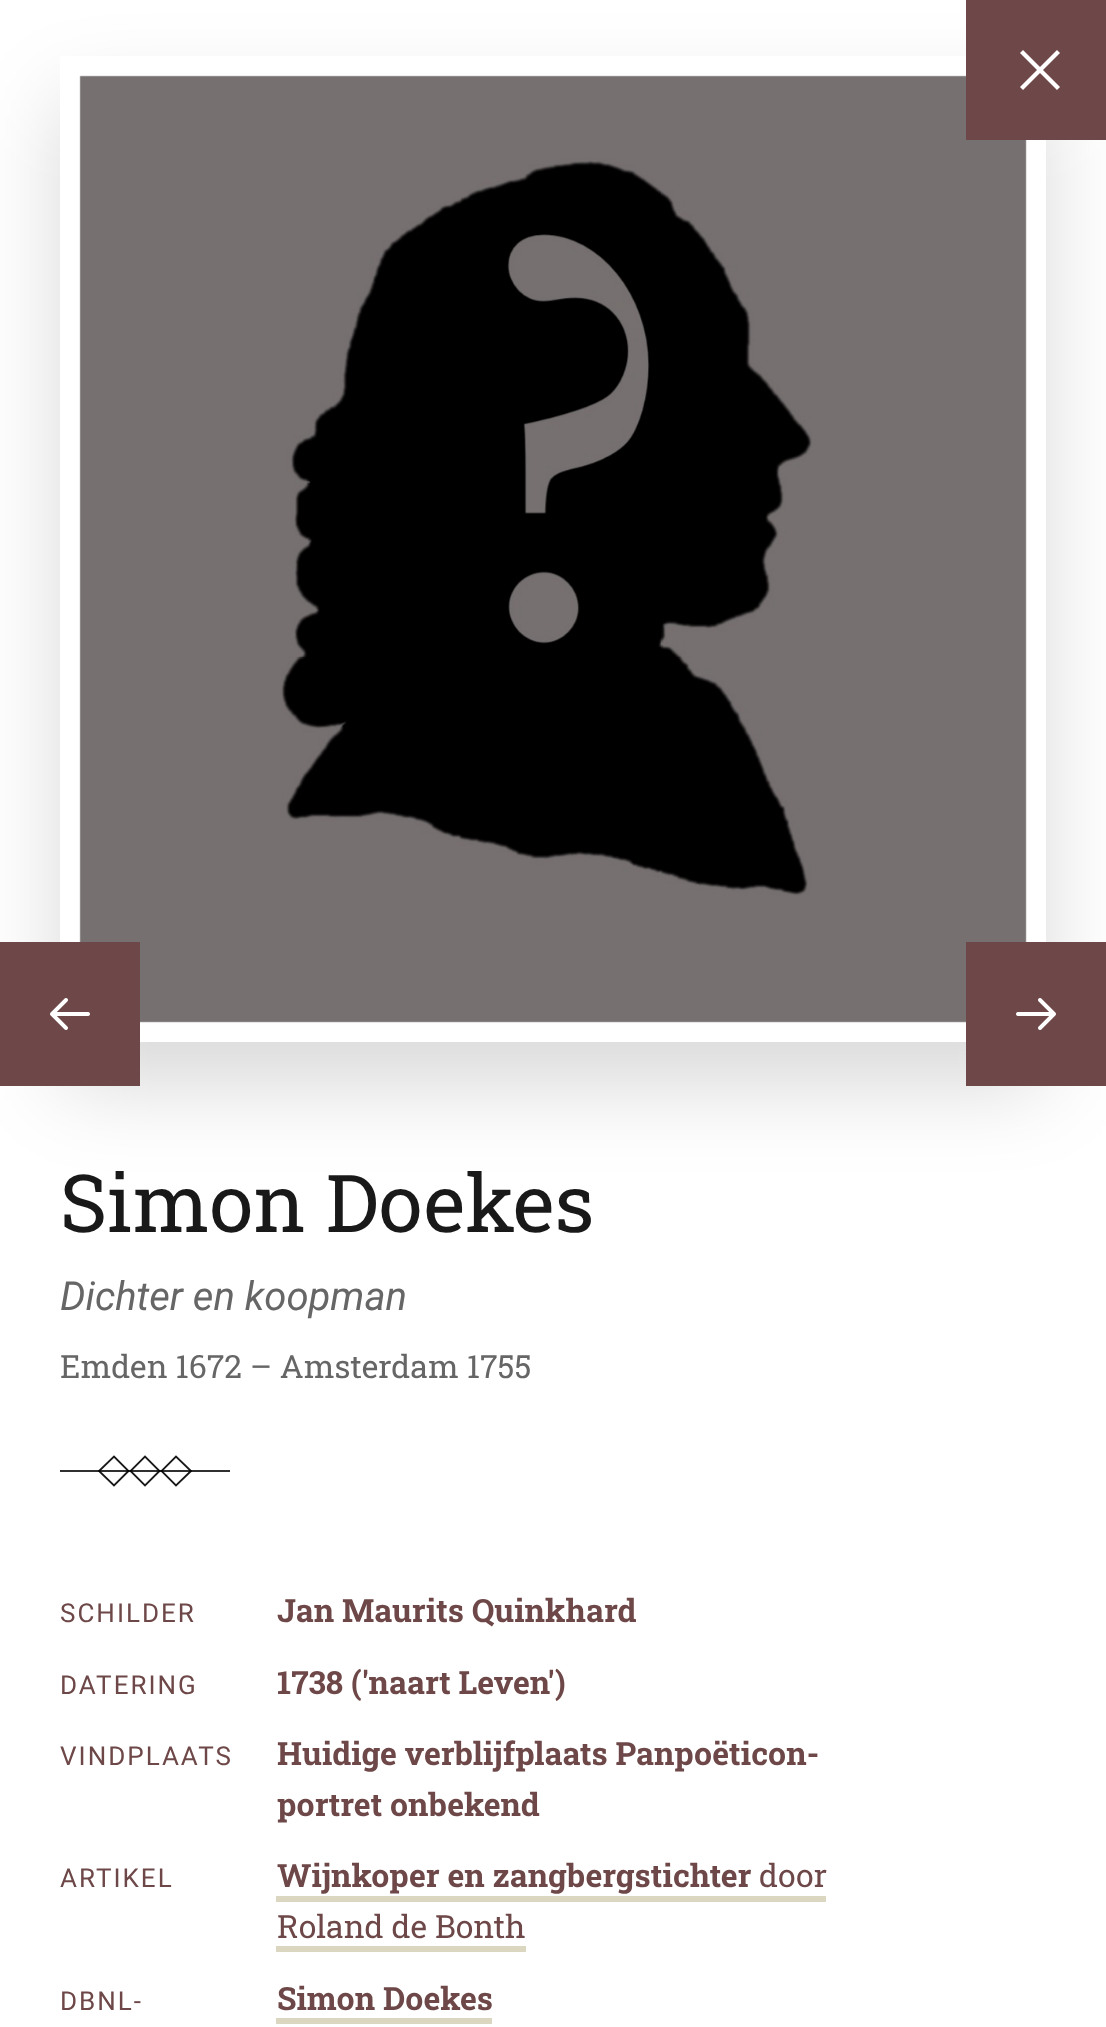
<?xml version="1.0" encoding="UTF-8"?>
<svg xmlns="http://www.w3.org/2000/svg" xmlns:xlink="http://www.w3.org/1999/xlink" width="1106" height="2027">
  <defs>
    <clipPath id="clip1"><path d="M 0 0 h 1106 v 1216 h -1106 z m 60 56 h 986 v 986 h -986 z" clip-rule="evenodd" /></clipPath>
  </defs>
  <rect width="100%" height="100%" fill="#ffffff" />
  <g clip-path="url(#clip1)">
    <rect x="60" y="100" width="986" height="986" fill="#000000" fill-opacity="0.15" filter="blur(43px)" />
  </g>
  <image x="79" y="75" width="948" height="948" xlink:href="image1.png" />
  <rect x="966" width="140" height="140" fill="#6e4848" />
  <path d="M 1023 50 l 37 37 l -3 3 l -37 -37 z" fill="#ffffff" />
  <path d="M 1020 87 l 37 -37 l 3 3 l -37 37 z" fill="#ffffff" />
  <rect y="942" width="140" height="144" fill="#6e4848" />
  <image x="50" y="998" width="40" height="32" xlink:href="image2.png" />
  <rect x="966" y="942" width="140" height="144" fill="#6e4848" />
  <image x="1016" y="998" width="40" height="32" xlink:href="image3.png" />
  <rect x="60" y="1470" width="170" height="2" fill="#303030" />
  <path d="M 128.5 1471 l -14.5 14.5 l -15 -14.5 l 15 -14.5 z" fill="none" stroke="#000000" stroke-opacity="0.9" stroke-width="1.8" />
  <path d="M 159.5 1471 l -14.5 14.5 l -14.5 -14.5 l 14.5 -14.5 z" fill="none" stroke="#000000" stroke-opacity="0.9" stroke-width="1.8" />
  <path d="M 191 1471 l -15 14.5 l -14.5 -14.5 l 14.5 -14.5 z" fill="none" stroke="#000000" stroke-opacity="0.9" stroke-width="1.8" />
  <rect x="276" y="1896" width="550" height="6" fill="#dbd6c0" />
  <rect x="276" y="1946" width="250" height="6" fill="#dbd6c0" />
  <rect x="276" y="2018" width="216" height="6" fill="#dbd6c0" />
  <text x="60" y="1232" style="font-family: Roboto Slab; font-size: 80px; fill: #191919">Simon Doekes</text>
  <text x="60" y="1310" style="font-family: Roboto; font-size: 40px; font-style: italic; fill: #666666">Dichter en koopman</text>
  <text x="60" y="1378" style="font-family: Roboto Slab; font-size: 32px; fill: #666666">Emden 1672 – Amsterdam 1755</text>
  <text x="60" y="1622" style="font-family: Roboto; font-size: 26px; letter-spacing: 2px; fill: #6e4848">SCHILDER</text>
  <text x="277" y="1622" style="font-family: Roboto Slab; font-size: 32px; font-weight: bold; fill: #6e4848">Jan Maurits Quinkhard</text>
  <text x="60" y="1694" style="font-family: Roboto; font-size: 26px; letter-spacing: 2px; fill: #6e4848">DATERING</text>
  <text x="277" y="1694" style="font-family: Roboto Slab; font-size: 32px; font-weight: bold; fill: #6e4848">1738 ('naart Leven')</text>
  <text x="60" y="1765" style="font-family: Roboto; font-size: 26px; letter-spacing: 2px; fill: #6e4848">VINDPLAATS</text>
  <text x="277" y="1765" style="font-family: Roboto Slab; font-size: 32px; font-weight: bold; fill: #6e4848">Huidige verblijfplaats Panpoëticon-</text>
  <text x="277" y="1816" style="font-family: Roboto Slab; font-size: 32px; font-weight: bold; fill: #6e4848">portret onbekend</text>
  <text x="60" y="1887" style="font-family: Roboto; font-size: 26px; letter-spacing: 2px; fill: #6e4848">ARTIKEL</text>
  <text x="277" y="1887" style="font-family: Roboto Slab; font-size: 32px; font-weight: bold; fill: #6e4848">Wijnkoper en zangbergstichter</text>
  <text x="759" y="1887" style="font-family: Roboto Slab; font-size: 32px; fill: #6e4848">door</text>
  <text x="277" y="1938" style="font-family: Roboto Slab; font-size: 32px; fill: #6e4848">Roland de Bonth</text>
  <text x="60" y="2010" style="font-family: Roboto; font-size: 26px; letter-spacing: 2px; fill: #6e4848">DBNL-</text>
  <text x="277" y="2010" style="font-family: Roboto Slab; font-size: 32px; font-weight: bold; fill: #6e4848">Simon Doekes</text>
</svg>
